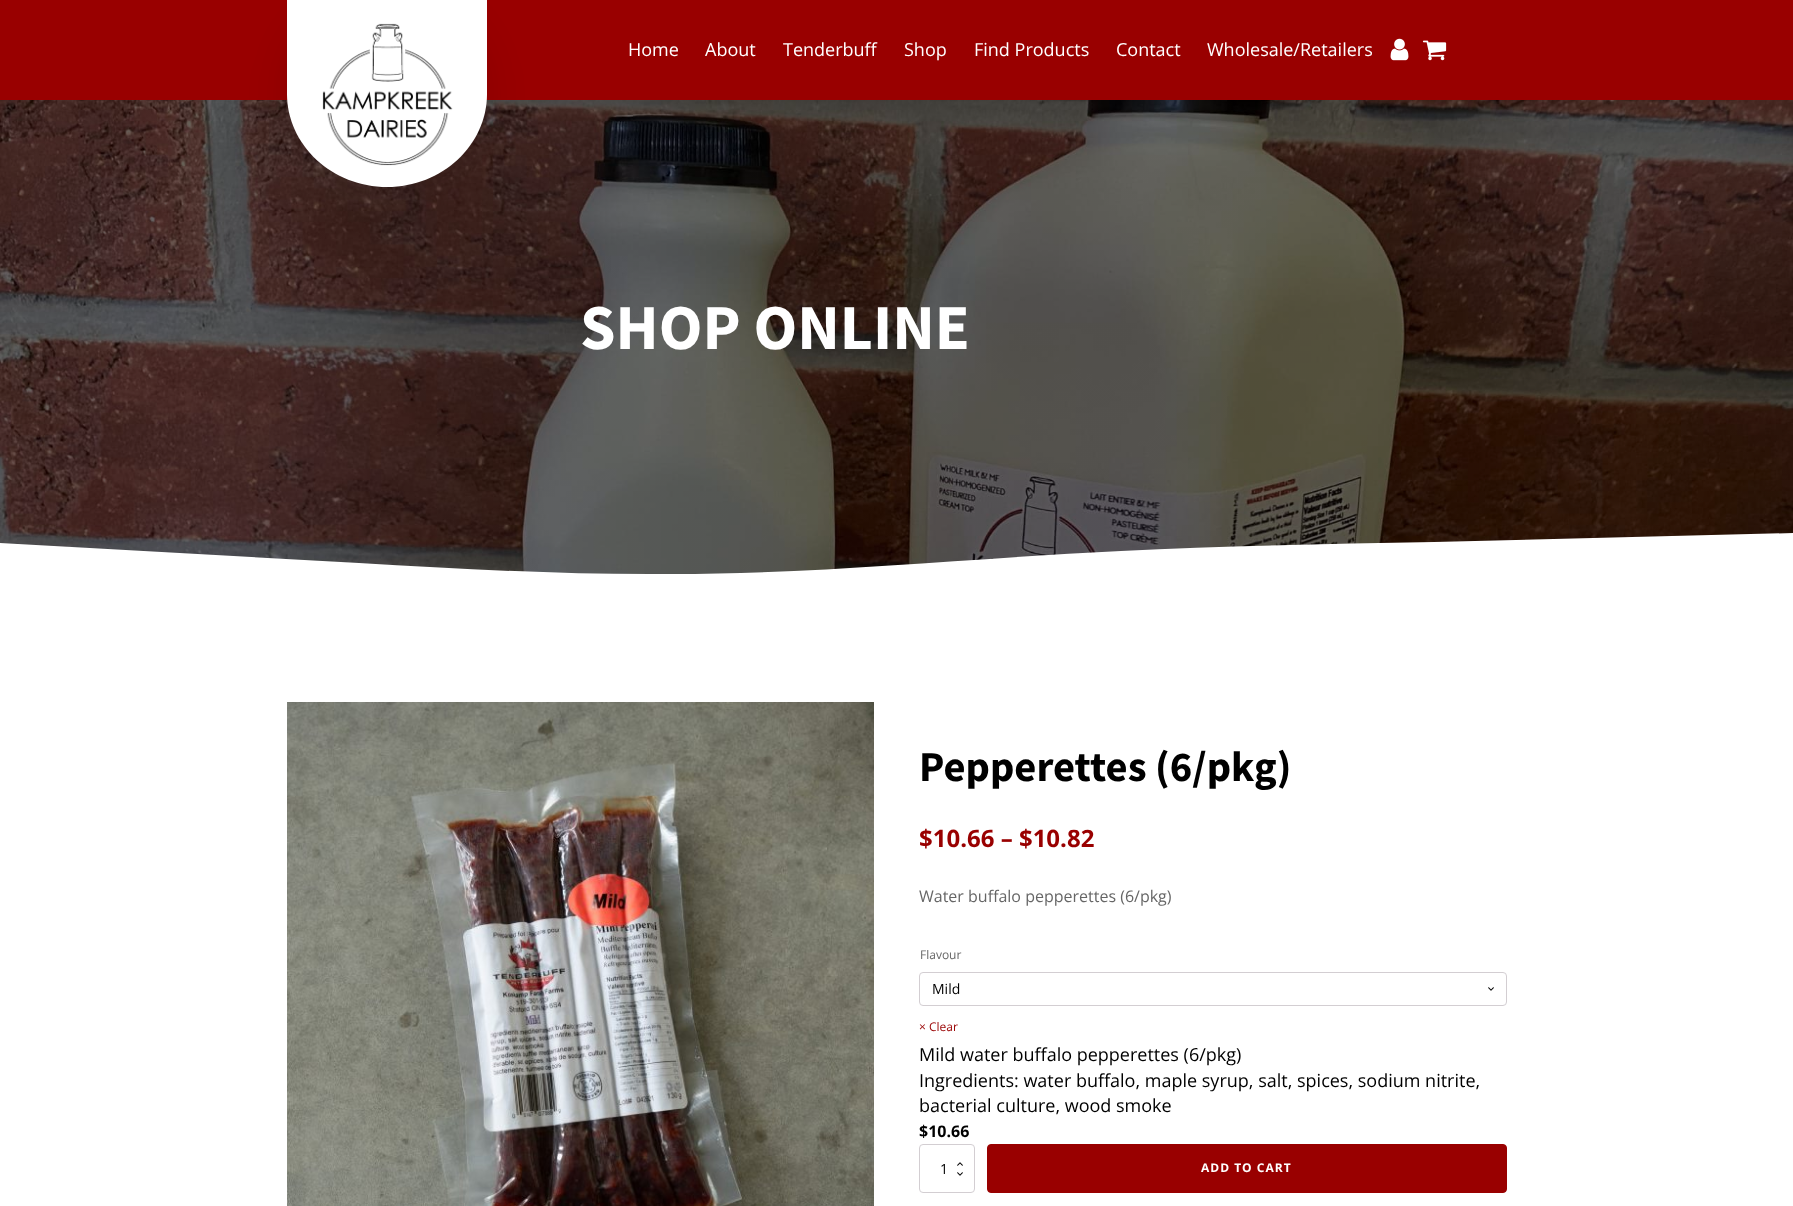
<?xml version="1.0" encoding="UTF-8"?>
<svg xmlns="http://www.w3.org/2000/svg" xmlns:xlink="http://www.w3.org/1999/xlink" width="1793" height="1206">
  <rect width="100%" height="100%" fill="#ffffff" />
  <rect width="1793" height="100" fill="#990000" />
  <image x="0" y="100" width="1793" height="475" xlink:href="image4.png" />
  <rect x="287" width="200" height="187" rx="93.5" fill="#000000" fill-opacity="0.1" filter="blur(20px)" />
  <path d="M 287 0 h 200 v 94 c 0 51 -45 93 -100 93 c -55 0 -100 -42 -100 -93 z" fill="#ffffff" />
  <image x="322" y="23" width="131" height="143" xlink:href="image1.png" />
  <image x="1390" y="38" width="19" height="23" xlink:href="image2.png" />
  <image x="1422" y="40" width="25" height="21" xlink:href="image3.png" />
  <path d="M 0 543 l 359 20 c 104 6 209 12 313 11 c 150 0 299 -16 449 -23 c 104 -5 209 -7 313 -9 l 359 -9 v 50 h -1793 z" fill="#ffffff" />
  <image x="287" y="702" width="587" height="504" xlink:href="image5.png" />
  <image x="1488" y="987" width="6" height="4" xlink:href="image6.png" />
  <rect x="919.5" y="972.5" width="587" height="33" rx="3.5" fill="none" stroke="#d3ced2" />
  <image x="957" y="1162" width="6" height="4" xlink:href="image7.png" />
  <image x="957" y="1172" width="6" height="4" xlink:href="image6.png" />
  <rect x="919.5" y="1144.5" width="55" height="48" rx="3.5" fill="none" stroke="#d3ced2" />
  <rect x="987.5" y="1144.5" width="519" height="48" rx="3.5" fill="#990000" stroke="#990000" />
  <text x="628" y="56" style="font-family: Open Sans; font-size: 18px; fill: #ffffff">Home</text>
  <text x="705" y="56" style="font-family: Open Sans; font-size: 18px; fill: #ffffff">About</text>
  <text x="783" y="56" style="font-family: Open Sans; font-size: 18px; fill: #ffffff">Tenderbuff</text>
  <text x="904" y="56" style="font-family: Open Sans; font-size: 18px; fill: #ffffff">Shop</text>
  <text x="974" y="56" style="font-family: Open Sans; font-size: 18px; fill: #ffffff">Find Products</text>
  <text x="1116" y="56" style="font-family: Open Sans; font-size: 18px; fill: #ffffff">Contact</text>
  <text x="1207" y="56" style="font-family: Open Sans; font-size: 18px; fill: #ffffff">Wholesale/Retailers</text>
  <text x="580" y="349" style="font-family: Source Sans Pro; font-size: 64px; font-weight: bold; fill: #ffffff">SHOP ONLINE</text>
  <text x="919" y="781" style="font-family: Source Sans Pro; font-size: 42.6px; font-weight: bold; fill: #000000">Pepperettes (6/pkg)</text>
  <text x="919" y="847" style="font-family: Open Sans; font-size: 24px; font-weight: bold; fill: #990000">$10.66 – $10.82</text>
  <text x="919" y="902" style="font-family: Open Sans; font-size: 16px; fill: #666666">Water buffalo pepperettes (6/pkg)</text>
  <text x="920" y="959" style="font-family: Open Sans; font-size: 12px; fill: #666666">Flavour</text>
  <text x="932" y="994" style="font-family: Open Sans; font-size: 14px; fill: #000000">Mild</text>
  <text x="919" y="1031" style="font-family: Open Sans; font-size: 12px; fill: #990000">× Clear</text>
  <text x="919" y="1061" style="font-family: Open Sans; font-size: 18px; fill: #000000">Mild water buffalo pepperettes (6/pkg)</text>
  <text x="919" y="1087" style="font-family: Open Sans; font-size: 18px; fill: #000000">Ingredients: water buffalo, maple syrup, salt, spices, sodium nitrite,</text>
  <text x="919" y="1112" style="font-family: Open Sans; font-size: 18px; fill: #000000">bacterial culture, wood smoke</text>
  <text x="919" y="1137" style="font-family: Open Sans; font-size: 16px; font-weight: bold; fill: #000000">$10.66</text>
  <text x="940" y="1174" style="font-family: Open Sans; font-size: 14px; fill: #000000">1</text>
  <text x="1201" y="1172" style="font-family: Open Sans; font-size: 12px; font-weight: bold; letter-spacing: 1px; fill: #ffffff">ADD TO CART</text>
</svg>
